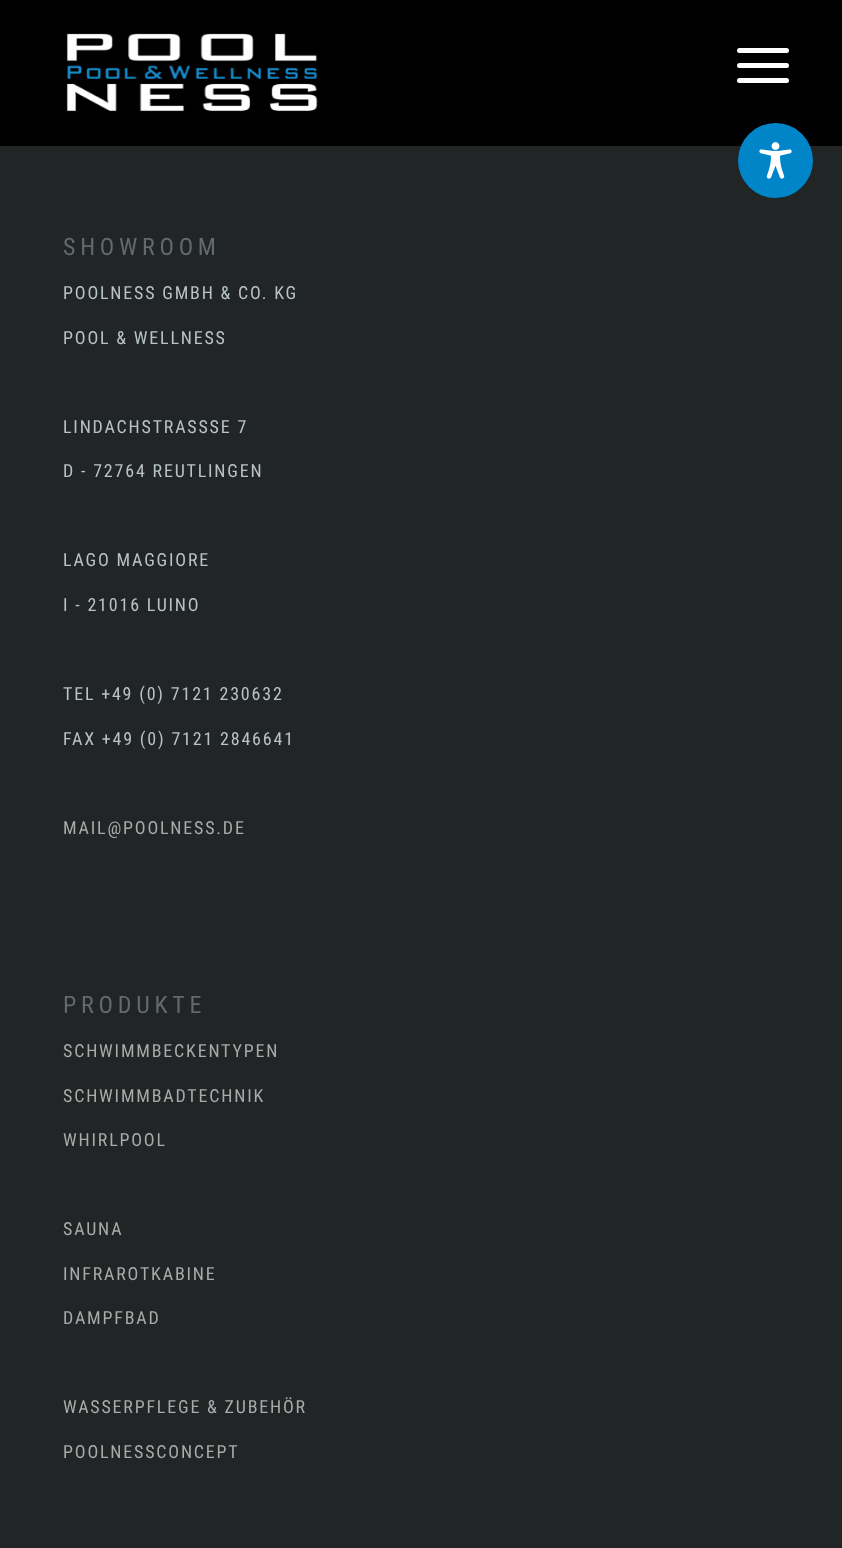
<?xml version="1.0" encoding="UTF-8"?>
<svg xmlns="http://www.w3.org/2000/svg" xmlns:xlink="http://www.w3.org/1999/xlink" width="842" height="1548">
  <rect width="100%" height="100%" fill="#000000" />
  <rect y="146" width="842" height="1402" fill="#212526" />
  <circle cx="775.5" cy="160.5" r="37.5" fill="#0085c9" />
  <image x="759" y="142" width="33" height="37" xlink:href="image1.png" />
  <image x="66" y="33" width="252" height="79" xlink:href="image2.png" />
  <rect x="737" y="63" width="52" height="5" rx="2.5" fill="#ffffff" />
  <rect x="737" y="48" width="52" height="5" rx="2.5" fill="#ffffff" />
  <rect x="737" y="78" width="52" height="5" rx="2.5" fill="#ffffff" />
  <text x="63" y="255" style="font-family: Roboto Condensed; font-size: 24px; letter-spacing: 4.75px; fill: #636a6c">SHOWROOM</text>
  <text x="63" y="299" style="font-family: Roboto Condensed; font-size: 18px; letter-spacing: 1.8px; fill: #b7c3c7">POOLNESS GMBH &amp; CO. KG</text>
  <text x="63" y="344" style="font-family: Roboto Condensed; font-size: 18px; letter-spacing: 1.8px; fill: #b7c3c7">POOL &amp; WELLNESS</text>
  <text x="63" y="433" style="font-family: Roboto Condensed; font-size: 18px; letter-spacing: 1.8px; fill: #b7c3c7">LINDACHSTRASSSE 7</text>
  <text x="63" y="477" style="font-family: Roboto Condensed; font-size: 18px; letter-spacing: 1.8px; fill: #b7c3c7">D - 72764 REUTLINGEN</text>
  <text x="63" y="566" style="font-family: Roboto Condensed; font-size: 18px; letter-spacing: 1.8px; fill: #b7c3c7">LAGO MAGGIORE</text>
  <text x="63" y="611" style="font-family: Roboto Condensed; font-size: 18px; letter-spacing: 1.8px; fill: #b7c3c7">I - 21016 LUINO</text>
  <text x="63" y="700" style="font-family: Roboto Condensed; font-size: 18px; letter-spacing: 1.8px; fill: #b7c3c7">TEL +49 (0) 7121 230632</text>
  <text x="63" y="745" style="font-family: Roboto Condensed; font-size: 18px; letter-spacing: 1.8px; fill: #b7c3c7">FAX +49 (0) 7121 2846641</text>
  <text x="63" y="834" style="font-family: Roboto Condensed; font-size: 18px; letter-spacing: 1.8px; fill: #aaaaaa">MAIL@POOLNESS.DE</text>
  <text x="63" y="1013" style="font-family: Roboto Condensed; font-size: 24px; letter-spacing: 4.75px; fill: #636a6c">PRODUKTE</text>
  <text x="63" y="1057" style="font-family: Roboto Condensed; font-size: 18px; letter-spacing: 1.8px; fill: #aaaaaa">SCHWIMMBECKENTYPEN</text>
  <text x="63" y="1102" style="font-family: Roboto Condensed; font-size: 18px; letter-spacing: 1.8px; fill: #aaaaaa">SCHWIMMBADTECHNIK</text>
  <text x="63" y="1146" style="font-family: Roboto Condensed; font-size: 18px; letter-spacing: 1.8px; fill: #aaaaaa">WHIRLPOOL</text>
  <text x="63" y="1235" style="font-family: Roboto Condensed; font-size: 18px; letter-spacing: 1.8px; fill: #aaaaaa">SAUNA</text>
  <text x="63" y="1280" style="font-family: Roboto Condensed; font-size: 18px; letter-spacing: 1.8px; fill: #aaaaaa">INFRAROTKABINE</text>
  <text x="63" y="1324" style="font-family: Roboto Condensed; font-size: 18px; letter-spacing: 1.8px; fill: #aaaaaa">DAMPFBAD</text>
  <text x="63" y="1413" style="font-family: Roboto Condensed; font-size: 18px; letter-spacing: 1.8px; fill: #aaaaaa">WASSERPFLEGE &amp; ZUBEHÖR</text>
  <text x="63" y="1458" style="font-family: Roboto Condensed; font-size: 18px; letter-spacing: 1.8px; fill: #aaaaaa">POOLNESSCONCEPT</text>
</svg>
